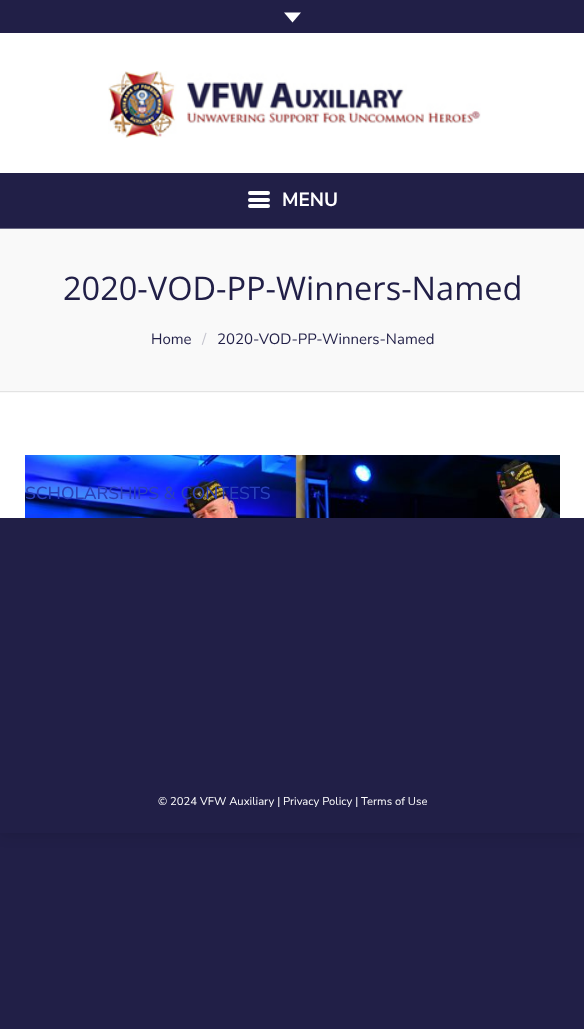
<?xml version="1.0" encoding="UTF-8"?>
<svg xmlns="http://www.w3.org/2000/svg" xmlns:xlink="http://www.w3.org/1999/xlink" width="584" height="1029">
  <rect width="100%" height="100%" fill="#211f47" />
  <rect width="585" height="833" fill="#000000" fill-opacity="0.15" filter="blur(7.5px)" />
  <rect y="33" width="584" height="485" fill="#ffffff" />
  <rect width="584" height="33" fill="#211f47" />
  <path d="M 284 12.5 h 17 l -8.5 10 z" fill="#ffffff" />
  <image x="108" y="71" width="373" height="67" xlink:href="image1.png" />
  <rect y="173" width="584" height="55" fill="#211f47" />
  <rect y="228" width="584" height="1" fill="#6a6984" />
  <rect x="248" y="198" width="22" height="4" rx="2" fill="#ffffff" />
  <rect x="248" y="191" width="22" height="4" rx="2" fill="#ffffff" />
  <rect x="248" y="204" width="22" height="4" rx="2" fill="#ffffff" />
  <rect y="229" width="584" height="164" fill="#f9f9f9" />
  <rect y="391" width="584" height="1" fill="#e3e3e3" />
  <image x="25" y="455" width="535" height="63" xlink:href="image2.png" />
  <rect y="518" width="584" height="315" fill="#211f47" />
  <text x="282" y="206" style="font-family: Nunito Sans; font-size: 19px; font-weight: bold; fill: #ffffff">MENU</text>
  <text x="25" y="499" style="font-family: Nunito Sans; font-size: 17.5px; font-weight: 500; fill: #2a40ba">SCHOLARSHIPS &amp; CONTESTS</text>
  <text x="63" y="300" style="font-family: Open Sans; font-size: 32.5px; fill: #211f47">2020-VOD-PP-Winners-Named</text>
  <text x="151" y="344" style="font-family: Nunito Sans; font-size: 15px; fill: #211f47">Home</text>
  <text x="202" y="344" style="font-family: Nunito Sans; font-size: 15px; fill: #c3c3cd">/</text>
  <text x="217" y="344" style="font-family: Nunito Sans; font-size: 15px; fill: #211f47">2020-VOD-PP-Winners-Named</text>
  <text x="158" y="805" style="font-family: Nunito Sans; font-size: 11.25px; fill: #ffffff">© 2024 VFW Auxiliary | Privacy Policy | Terms of Use</text>
</svg>
